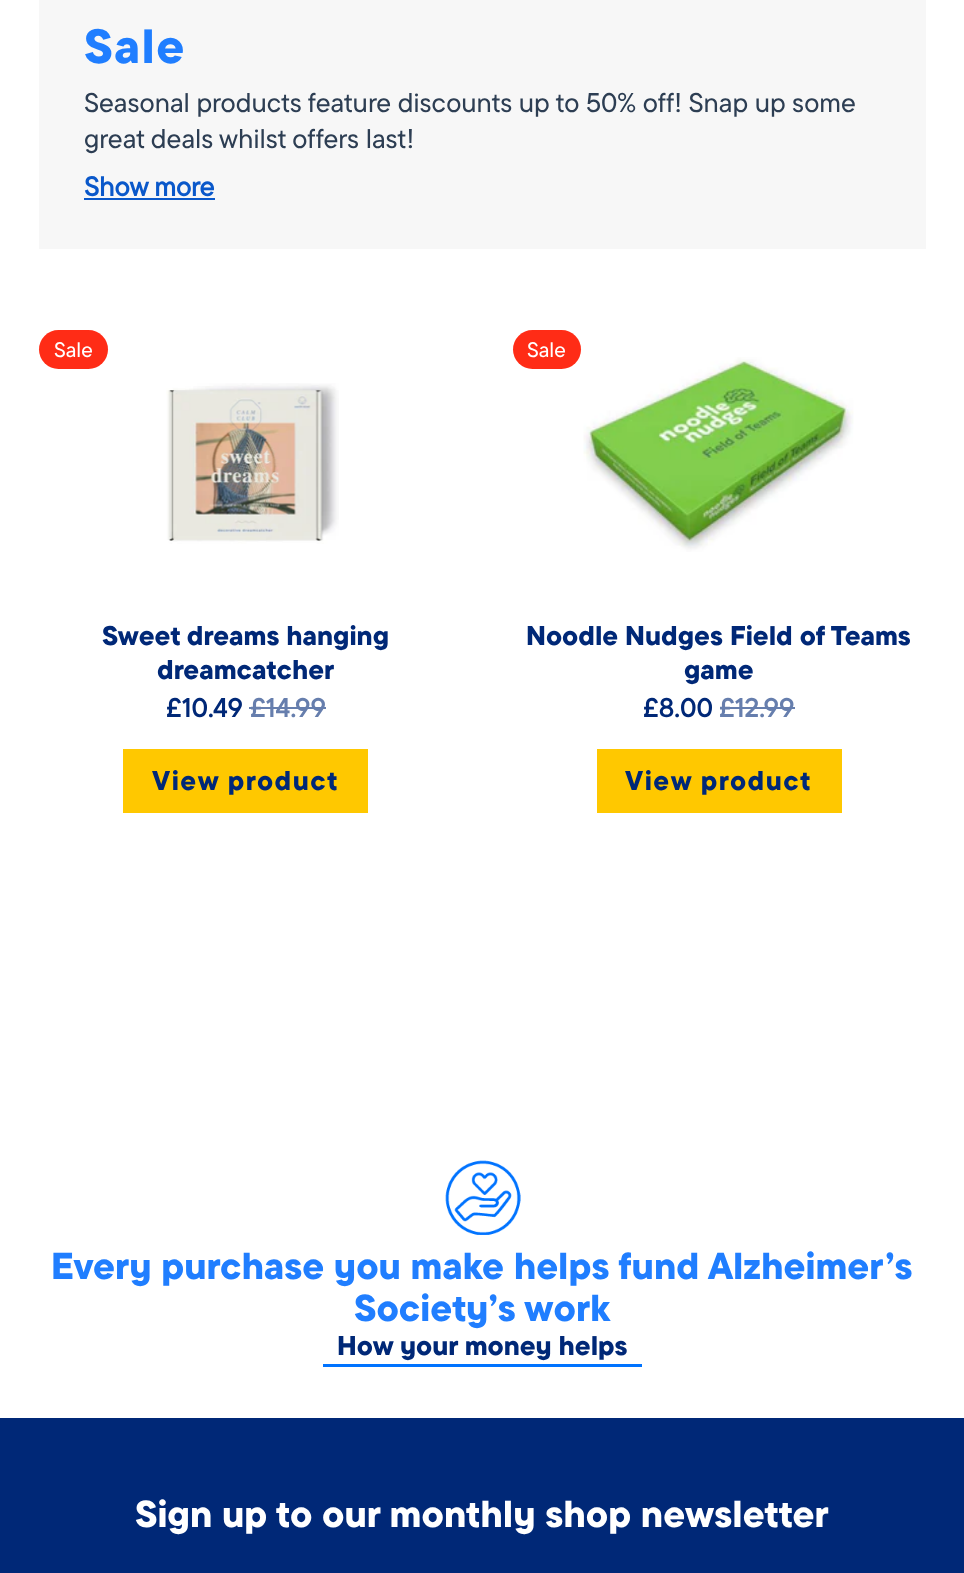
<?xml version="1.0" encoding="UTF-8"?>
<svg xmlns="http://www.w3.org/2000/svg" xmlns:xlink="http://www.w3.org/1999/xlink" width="964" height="1573">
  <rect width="100%" height="100%" fill="#ffffff" />
  <rect x="39" width="887" height="249" fill="#f7f7f7" />
  <rect x="84" y="198" width="131" height="2" fill="#0a58ca" />
  <rect x="39" y="330" width="69" height="39" rx="19.5" fill="#ff2c16" />
  <image x="166" y="383" width="173" height="161" xlink:href="image1.png" />
  <rect x="249" y="707" width="77" height="2" fill="#667ead" />
  <rect x="123" y="749" width="245" height="64" fill="#ffc800" />
  <rect x="513" y="330" width="68" height="39" rx="19.5" fill="#ff2c16" />
  <image x="583" y="357" width="271" height="195" xlink:href="image2.png" />
  <rect x="720" y="707" width="75" height="2" fill="#667ead" />
  <rect x="597" y="749" width="245" height="64" fill="#ffc800" />
  <image x="445" y="1160" width="76" height="75" xlink:href="image3.png" />
  <rect x="323" y="1364" width="319" height="3" fill="#0073ff" />
  <rect y="1418" width="964" height="155" fill="#002877" />
  <text x="84" y="63" style="font-family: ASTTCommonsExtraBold; font-size: 48px; font-weight: 800; letter-spacing: 1.5px; fill: #207eff">Sale</text>
  <text x="84" y="112" style="font-family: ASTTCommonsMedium; font-size: 27px; font-weight: 500; fill: #2d3e53">Seasonal products feature discounts up to 50% off! Snap up some</text>
  <text x="84" y="148" style="font-family: ASTTCommonsMedium; font-size: 27px; font-weight: 500; fill: #2d3e53">great deals whilst offers last!</text>
  <text x="84" y="196" style="font-family: ASTTCommonsMedium; font-size: 27px; font-weight: bold; fill: #0a58ca">Show more</text>
  <text x="54" y="357" style="font-family: ASTTCommonsMedium; font-size: 21px; font-weight: 500; fill: #ffffff">Sale</text>
  <text x="102" y="645" style="font-family: ASTTCommonsExtraBold; font-size: 27px; font-weight: 800; fill: #002877">Sweet dreams hanging</text>
  <text x="157" y="679" style="font-family: ASTTCommonsExtraBold; font-size: 27px; font-weight: 800; fill: #002877">dreamcatcher</text>
  <text x="166" y="717" style="font-family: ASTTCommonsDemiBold; font-size: 27px; font-weight: 600; fill: #002877">£10.49</text>
  <text x="250" y="717" style="font-family: ASTTCommonsDemiBold; font-size: 27px; font-weight: 600; fill: #667ead">£14.99</text>
  <text x="152" y="790" style="font-family: ASTTCommonsExtraBold; font-size: 27px; font-weight: 800; letter-spacing: 1.5px; fill: #002877">View product</text>
  <text x="527" y="357" style="font-family: ASTTCommonsMedium; font-size: 21px; font-weight: 500; fill: #ffffff">Sale</text>
  <text x="526" y="645" style="font-family: ASTTCommonsExtraBold; font-size: 27px; font-weight: 800; fill: #002877">Noodle Nudges Field of Teams</text>
  <text x="684" y="679" style="font-family: ASTTCommonsExtraBold; font-size: 27px; font-weight: 800; fill: #002877">game</text>
  <text x="643" y="717" style="font-family: ASTTCommonsDemiBold; font-size: 27px; font-weight: 600; fill: #002877">£8.00</text>
  <text x="719" y="717" style="font-family: ASTTCommonsDemiBold; font-size: 27px; font-weight: 600; fill: #667ead">£12.99</text>
  <text x="625" y="790" style="font-family: ASTTCommonsExtraBold; font-size: 27px; font-weight: 800; letter-spacing: 1.5px; fill: #002877">View product</text>
  <text x="51" y="1279" style="font-family: ASTTCommonsExtraBold; font-size: 37.5px; font-weight: 800; fill: #207eff">Every purchase you make helps fund Alzheimer’s</text>
  <text x="354" y="1321" style="font-family: ASTTCommonsExtraBold; font-size: 37.5px; font-weight: 800; fill: #207eff">Society’s work</text>
  <text x="337" y="1355" style="font-family: ASTTCommonsExtraBold; font-size: 27px; font-weight: 800; fill: #002877">How your money helps</text>
  <text x="135" y="1527" style="font-family: ASTTCommonsExtraBold; font-size: 37.5px; font-weight: 800; fill: #ffffff">Sign up to our monthly shop newsletter</text>
</svg>
